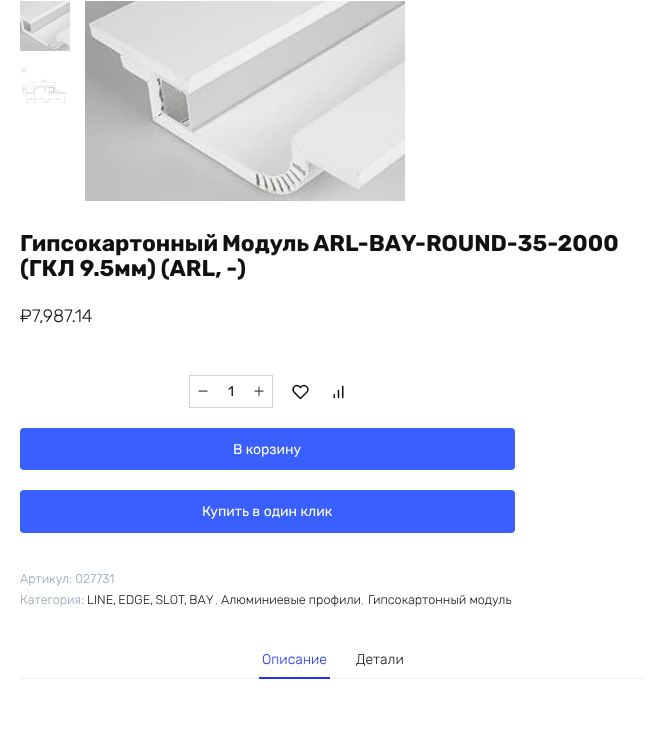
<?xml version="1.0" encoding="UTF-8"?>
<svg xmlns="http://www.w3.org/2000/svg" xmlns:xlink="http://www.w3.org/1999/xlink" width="665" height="732">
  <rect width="100%" height="100%" fill="#ffffff" />
  <image x="20" y="1" width="50" height="50" xlink:href="image1.png" />
  <image x="20" y="67" width="46" height="37" xlink:href="image2.png" />
  <image x="85" y="1" width="320" height="200" xlink:href="image3.png" />
  <rect x="189.5" y="375.5" width="83" height="32" fill="none" stroke="#ced4da" />
  <rect x="20" y="428" width="495" height="42" rx="4" fill="#3960ff" />
  <rect x="20" y="490" width="495" height="43" rx="4" fill="#3960ff" />
  <rect x="20" y="678" width="625" height="1" fill="#eeeeee" />
  <rect x="259" y="677" width="71" height="2" fill="#1f34ec" />
  <text x="20" y="251" word-spacing="-1" style="font-family: Rubik; font-size: 22.75px; font-weight: bold; fill: #111111">Гипсокартонный Модуль ARL-BAY-ROUND-35-2000</text>
  <text x="20" y="276" style="font-family: Rubik; font-size: 22.75px; font-weight: bold; fill: #111111">(ГКЛ 9.5мм) (ARL, -)</text>
  <text x="20" y="322" style="font-family: Rubik; font-size: 18px; font-weight: 300; fill: #111111">₽7,987.14</text>
  <text x="196" y="397" style="font-family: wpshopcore; font-size: 14px; fill: #4d4d4d">-</text>
  <text x="228" y="396" style="font-family: Rubik; font-size: 14px; fill: #111111">1</text>
  <text x="252" y="397" style="font-family: wpshopcore; font-size: 14px; fill: #4d4d4d">+</text>
  <text x="292" y="399" style="font-family: wpshopcore; font-size: 17px; fill: #000000">♥</text>
  <text x="330" y="399" style="font-family: wpshopcore; font-size: 17px; fill: #000000">📈</text>
  <text x="233" y="454" style="font-family: Rubik; font-size: 14px; fill: #ffffff">В корзину</text>
  <text x="202" y="516" style="font-family: Rubik; font-size: 14px; fill: #ffffff">Купить в один клик</text>
  <text x="20" y="583" style="font-family: Rubik; font-size: 12.6px; font-weight: 300; fill: #91a6ba">Артикул: 027731</text>
  <text x="20" y="604" style="font-family: Rubik; font-size: 12.6px; font-weight: 300; fill: #91a6ba">Категория:</text>
  <text x="87" y="604" word-spacing="-1" style="font-family: Rubik; font-size: 12.6px; font-weight: 300; fill: #111111">LINE, EDGE, SLOT, BAY</text>
  <text x="215" y="604" style="font-family: Rubik; font-size: 12.6px; font-weight: 300; fill: #91a6ba">,</text>
  <text x="221" y="604" style="font-family: Rubik; font-size: 12.6px; font-weight: 300; fill: #111111">Алюминиевые профили</text>
  <text x="361" y="604" style="font-family: Rubik; font-size: 12.6px; font-weight: 300; fill: #91a6ba">,</text>
  <text x="368" y="604" style="font-family: Rubik; font-size: 12.6px; font-weight: 300; fill: #111111">Гипсокартонный модуль</text>
  <text x="262" y="664" style="font-family: Rubik; font-size: 14px; font-weight: 300; fill: #1f34ec">Описание</text>
  <text x="356" y="664" style="font-family: Rubik; font-size: 14px; font-weight: 300; fill: #111111">Детали</text>
</svg>
